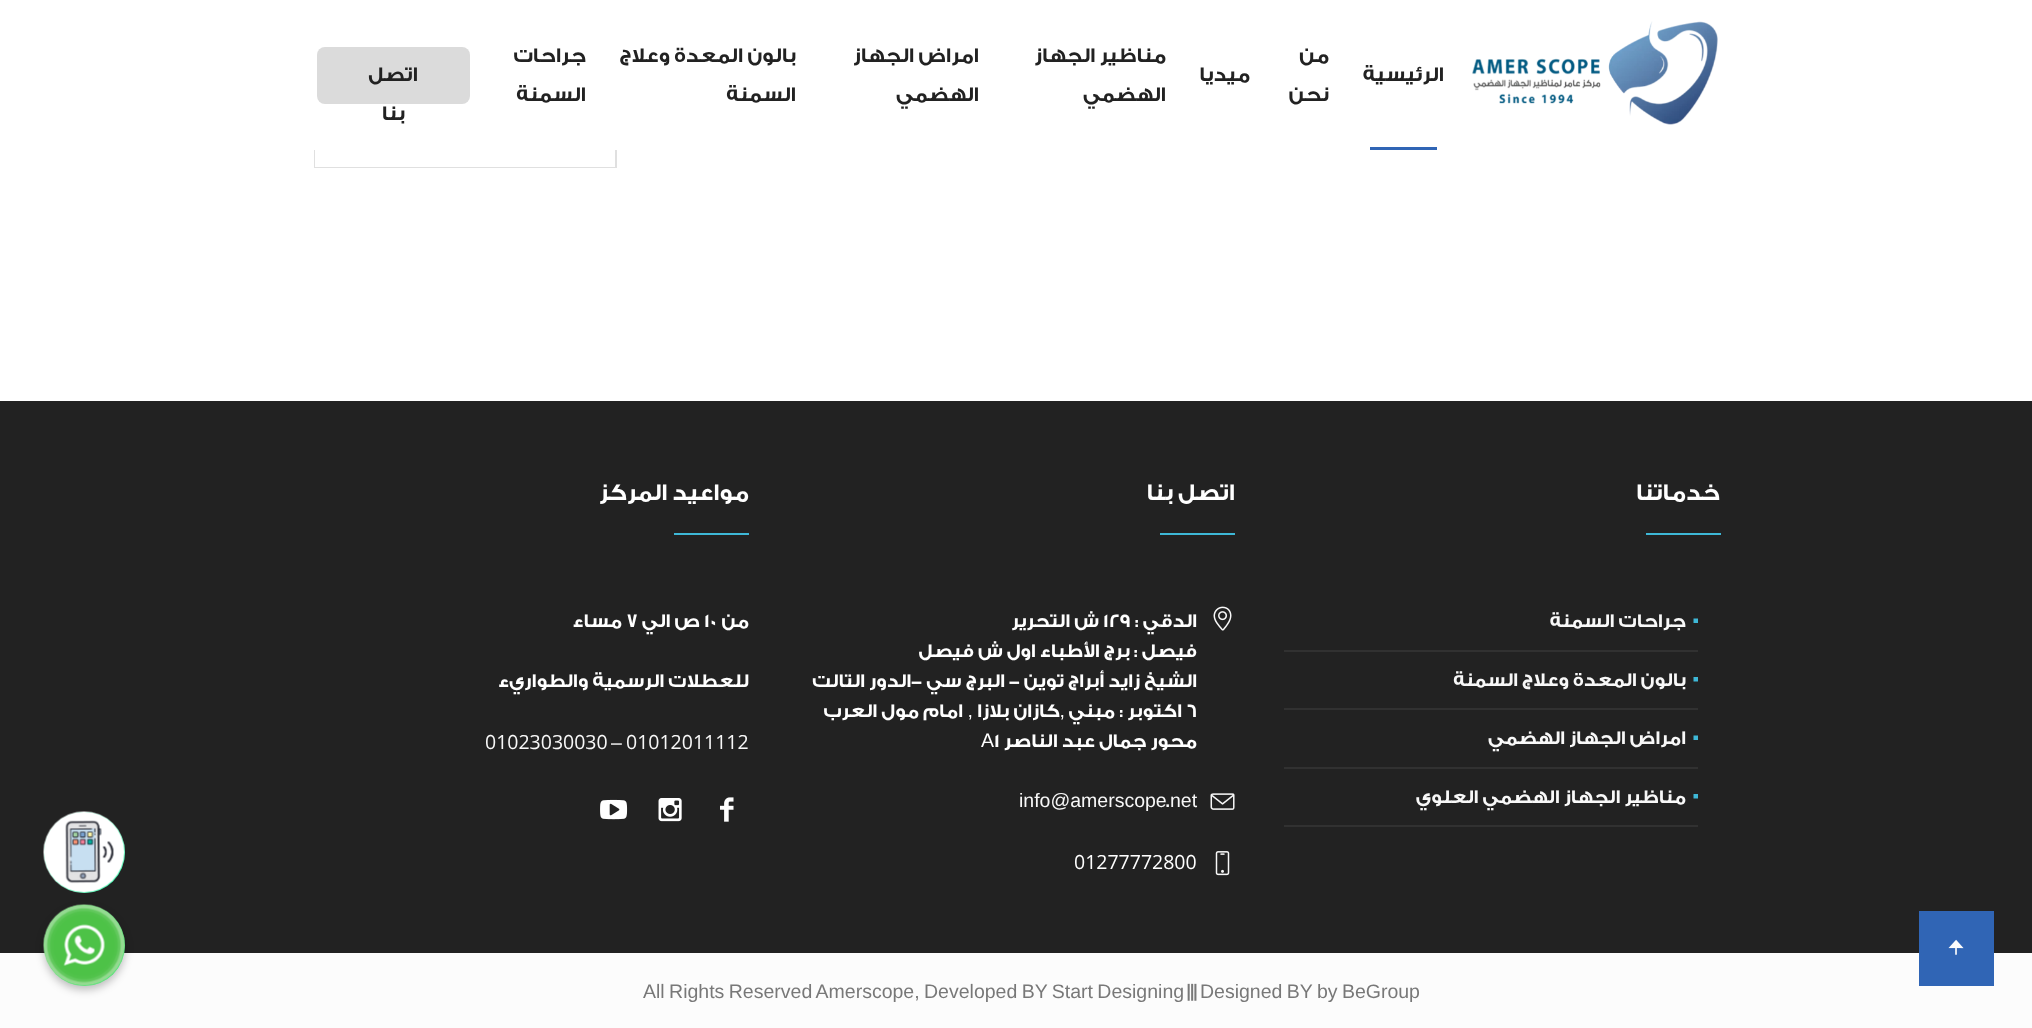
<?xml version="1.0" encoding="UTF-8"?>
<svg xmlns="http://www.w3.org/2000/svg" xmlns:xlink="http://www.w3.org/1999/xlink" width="2032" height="1028">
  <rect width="100%" height="100%" fill="#ffffff" />
  <rect x="315" y="91" width="301" height="76" fill="none" stroke="#e0e0e0" stroke-width="2" />
  <rect x="314" y="90" width="303" height="60" fill="#ffffff" />
  <image x="1472" y="21" width="246" height="104" xlink:href="image1.png" />
  <rect x="317" y="47" width="153" height="57" rx="8" fill="#dbdbdb" />
  <rect x="1370" y="147" width="67" height="3" fill="#3065b5" />
  <rect x="315" y="150" width="300" height="17" fill="#ffffff" />
  <rect y="401" width="2032" height="552" fill="#222222" />
  <rect x="1646" y="533" width="75" height="2" fill="#3eb8d7" />
  <rect x="1284" y="650" width="414" height="2" fill="#313131" />
  <path d="M 1698 618.5 v 4.5 h -4.5 v -4.5 z" fill="#3eb8d7" />
  <rect x="1284" y="708" width="414" height="2" fill="#313131" />
  <path d="M 1698 677 v 4.5 h -4.5 v -4.5 z" fill="#3eb8d7" />
  <rect x="1284" y="767" width="414" height="2" fill="#313131" />
  <path d="M 1698 735.5 v 4.5 h -4.5 v -4.5 z" fill="#3eb8d7" />
  <rect x="1284" y="825" width="414" height="2" fill="#313131" />
  <path d="M 1698 794 v 4.5 h -4.5 v -4.5 z" fill="#3eb8d7" />
  <rect x="1160" y="533" width="75" height="2" fill="#3eb8d7" />
  <image x="1213" y="606" width="19" height="25" xlink:href="image2.png" />
  <image x="1210" y="793" width="25" height="17" xlink:href="image3.png" />
  <image x="1215" y="851" width="15" height="25" xlink:href="image4.png" />
  <rect x="674" y="533" width="75" height="2" fill="#3eb8d7" />
  <image x="720" y="797" width="14" height="25" xlink:href="image5.png" />
  <image x="658" y="798" width="24" height="24" xlink:href="image6.png" />
  <image x="600" y="799" width="28" height="21" xlink:href="image7.png" />
  <rect y="953" width="2032" height="75" fill="#fcfcfc" />
  <rect x="1919" y="911" width="75" height="75" fill="#3065b5" />
  <image x="1948" y="939" width="16" height="16" xlink:href="image8.png" />
  <circle cx="84.5" cy="852.5" r="40.5" fill="#03e78b" />
  <image x="43" y="811" width="82" height="82" xlink:href="image9.png" />
  <rect x="44" y="909" width="81" height="81" rx="40.5" fill="#000000" fill-opacity="0.25" filter="blur(4.5px)" />
  <circle cx="84.5" cy="945.5" r="40.5" fill="#49e670" />
  <image x="43" y="904" width="82" height="82" xlink:href="image10.png" />
  <text x="1444" y="81" style="font-family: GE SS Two; font-size: 21px; font-weight: bold; direction: rtl; fill: #222222">الرئيسية</text>
  <text x="1329" y="62" style="font-family: GE SS Two; font-size: 21px; font-weight: bold; direction: rtl; fill: #222222">من</text>
  <text x="1329" y="101" style="font-family: GE SS Two; font-size: 21px; font-weight: bold; direction: rtl; fill: #222222">نحن</text>
  <text x="1250" y="81" style="font-family: GE SS Two; font-size: 21px; font-weight: bold; direction: rtl; fill: #222222">ميديا</text>
  <text x="1166" y="62" style="font-family: GE SS Two; font-size: 21px; font-weight: bold; direction: rtl; fill: #222222">مناظير الجهاز</text>
  <text x="1166" y="101" style="font-family: GE SS Two; font-size: 21px; font-weight: bold; direction: rtl; fill: #222222">الهضمي</text>
  <text x="979" y="62" style="font-family: GE SS Two; font-size: 21px; font-weight: bold; direction: rtl; fill: #222222">امراض الجهاز</text>
  <text x="979" y="101" style="font-family: GE SS Two; font-size: 21px; font-weight: bold; direction: rtl; fill: #222222">الهضمي</text>
  <text x="796" y="62" style="font-family: GE SS Two; font-size: 21px; font-weight: bold; direction: rtl; fill: #222222">بالون المعدة وعلاج</text>
  <text x="796" y="101" style="font-family: GE SS Two; font-size: 21px; font-weight: bold; direction: rtl; fill: #222222">السمنة</text>
  <text x="586" y="62" style="font-family: GE SS Two; font-size: 21px; font-weight: bold; direction: rtl; fill: #222222">جراحات</text>
  <text x="586" y="101" style="font-family: GE SS Two; font-size: 21px; font-weight: bold; direction: rtl; fill: #222222">السمنة</text>
  <text x="418" y="81" style="font-family: GE SS Two; font-size: 21px; font-weight: bold; direction: rtl; fill: #222222">اتصل</text>
  <text x="405" y="120" style="font-family: GE SS Two; font-size: 21px; font-weight: bold; direction: rtl; fill: #222222">بنا</text>
  <text x="1720" y="500" style="font-family: GE SS Two; font-size: 24px; font-weight: bold; direction: rtl; fill: #ffffff">خدماتنا</text>
  <text x="1686" y="627" style="font-family: GE SS Two; font-size: 19.5px; font-weight: bold; direction: rtl; fill: #f8f8f8">جراحات السمنة</text>
  <text x="1686" y="686" style="font-family: GE SS Two; font-size: 19.5px; font-weight: bold; direction: rtl; fill: #f8f8f8">بالون المعدة وعلاج السمنة</text>
  <text x="1686" y="744" style="font-family: GE SS Two; font-size: 19.5px; font-weight: bold; direction: rtl; fill: #f8f8f8">امراض الجهاز الهضمي</text>
  <text x="1686" y="803" style="font-family: GE SS Two; font-size: 19.5px; font-weight: bold; direction: rtl; fill: #f8f8f8">مناظير الجهاز الهضمي العلوي</text>
  <text x="1235" y="500" style="font-family: GE SS Two; font-size: 24px; font-weight: bold; direction: rtl; fill: #ffffff">اتصل بنا</text>
  <text x="1197" y="627" style="font-family: GE SS Two; font-size: 19.5px; font-weight: bold; direction: rtl; fill: #ffffff">الدقي :</text>
  <text x="1103" y="627" style="font-family: GE SS Two; font-size: 19.5px; font-weight: bold; fill: #ffffff">١٢٩</text>
  <text x="1099" y="627" style="font-family: GE SS Two; font-size: 19.5px; font-weight: bold; direction: rtl; fill: #ffffff">ش التحرير</text>
  <text x="1197" y="657" style="font-family: GE SS Two; font-size: 19.5px; font-weight: bold; direction: rtl; fill: #ffffff">فيصل : برج الأطباء اول ش فيصل</text>
  <text x="1197" y="687" style="font-family: GE SS Two; font-size: 19.5px; font-weight: bold; direction: rtl; fill: #ffffff">الشيخ زايد أبراج توين - البرج سي</text>
  <text x="922" y="687" style="font-family: GE SS Two; font-size: 19.5px; font-weight: bold; direction: rtl; fill: #ffffff">-الدور التالت</text>
  <text x="1186" y="717" style="font-family: GE SS Two; font-size: 19.5px; font-weight: bold; fill: #ffffff">6</text>
  <text x="1182" y="717" style="font-family: GE SS Two; font-size: 19.5px; font-weight: bold; direction: rtl; fill: #ffffff">اكتوبر :</text>
  <text x="1115" y="717" style="font-family: GE SS Two; font-size: 19.5px; font-weight: bold; direction: rtl; fill: #ffffff">مبني</text>
  <text x="1065" y="717" style="font-family: Liberation Sans; font-size: 19.5px; direction: rtl; fill: #ffffff">,</text>
  <text x="1060" y="717" style="font-family: GE SS Two; font-size: 19.5px; font-weight: bold; direction: rtl; fill: #ffffff">كازان بلازا</text>
  <text x="973" y="717" style="font-family: Liberation Sans; font-size: 19.5px; direction: rtl; fill: #ffffff">,</text>
  <text x="963" y="717" style="font-family: GE SS Two; font-size: 19.5px; font-weight: bold; direction: rtl; fill: #ffffff">امام مول العرب</text>
  <text x="1197" y="747" style="font-family: GE SS Two; font-size: 19.5px; font-weight: bold; direction: rtl; fill: #ffffff">محور جمال عبد الناصر</text>
  <text x="994" y="747" style="font-family: GE SS Two; font-size: 19.5px; font-weight: bold; fill: #ffffff">1</text>
  <text x="981" y="747" style="font-family: Liberation Sans; font-size: 19.5px; fill: #ffffff">A</text>
  <text x="1170" y="807" style="font-family: Liberation Sans; font-size: 19.5px; fill: #f8f8f8">net</text>
  <text x="1166" y="807" style="font-family: GE SS Two; font-size: 19.5px; font-weight: bold; fill: #f8f8f8">.</text>
  <text x="1019" y="807" style="font-family: Liberation Sans; font-size: 19.5px; fill: #f8f8f8">info@amerscope</text>
  <text x="1074" y="869" style="font-family: Open Sans; font-size: 19.5px; fill: #ffffff">01277772800</text>
  <text x="749" y="500" style="font-family: GE SS Two; font-size: 24px; font-weight: bold; direction: rtl; fill: #ffffff">مواعيد المركز</text>
  <text x="749" y="627" style="font-family: GE SS Two; font-size: 19.5px; font-weight: bold; direction: rtl; fill: #ffffff">من</text>
  <text x="704" y="627" style="font-family: GE SS Two; font-size: 19.5px; font-weight: bold; fill: #ffffff">١٠</text>
  <text x="700" y="627" style="font-family: GE SS Two; font-size: 19.5px; font-weight: bold; direction: rtl; fill: #ffffff">ص الي</text>
  <text x="626" y="627" style="font-family: GE SS Two; font-size: 19.5px; font-weight: bold; fill: #ffffff">٧</text>
  <text x="622" y="627" style="font-family: GE SS Two; font-size: 19.5px; font-weight: bold; direction: rtl; fill: #ffffff">مساء</text>
  <text x="749" y="687" style="font-family: GE SS Two; font-size: 19.5px; font-weight: bold; direction: rtl; fill: #ffffff">للعطلات الرسمية والطواريء</text>
  <text x="626" y="749" style="font-family: Open Sans; font-size: 19.5px; fill: #f8f8f8">01012011112</text>
  <text x="611" y="749" style="font-family: Liberation Sans; font-size: 19.5px; fill: #ffffff">–</text>
  <text x="485" y="749" style="font-family: Open Sans; font-size: 19.5px; fill: #f8f8f8">01023030030</text>
  <text x="1200" y="998" word-spacing="-1" style="font-family: Liberation Sans; font-size: 19.5px; fill: #787878">Designed BY by BeGroup</text>
  <text x="1187" y="998" style="font-family: GE SS Two; font-size: 19.5px; font-weight: bold; fill: #787878">|||</text>
  <text x="643" y="998" word-spacing="-1" style="font-family: Liberation Sans; font-size: 19.5px; fill: #787878">All Rights Reserved Amerscope, Developed BY Start Designing</text>
</svg>
